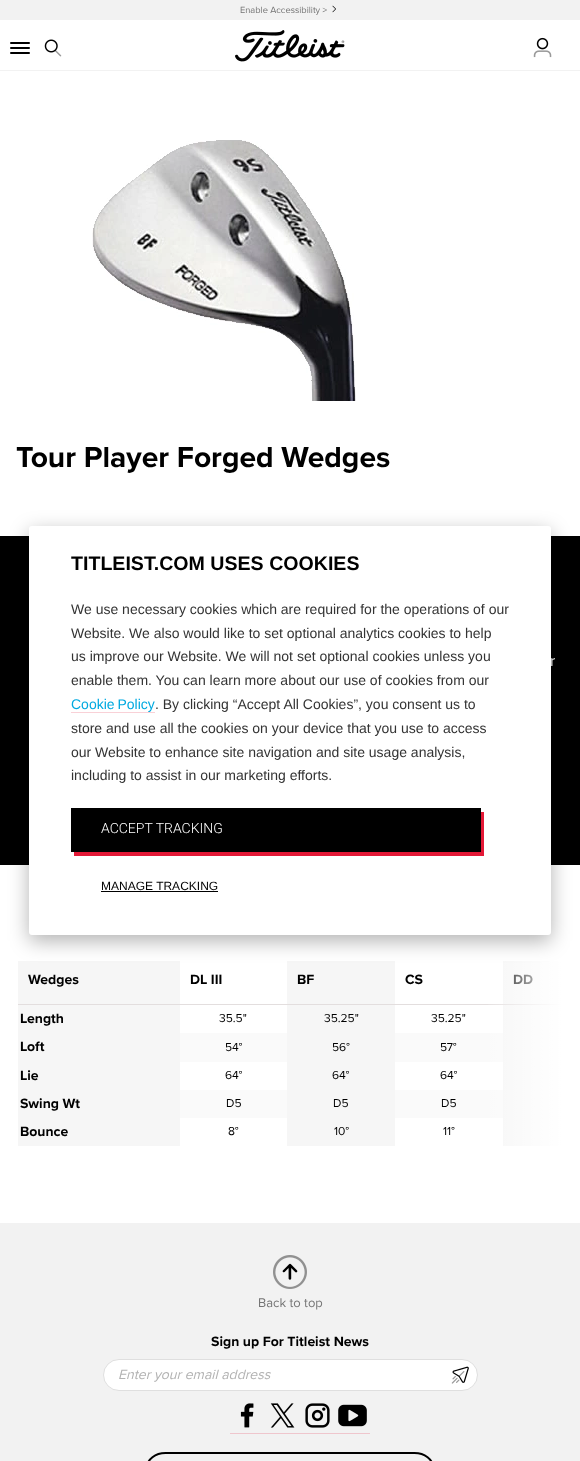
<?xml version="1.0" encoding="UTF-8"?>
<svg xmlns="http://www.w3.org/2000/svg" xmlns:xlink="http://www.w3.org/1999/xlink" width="580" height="1461">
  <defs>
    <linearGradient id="g1" gradientUnits="userSpaceOnUse" x1="482" y1="1060" x2="562" y2="1060"><stop offset="0" stop-color="#ffffff" stop-opacity="0" /><stop offset="1" stop-color="#ffffff" /></linearGradient>
  </defs>
  <rect width="100%" height="100%" fill="#ffffff" />
  <rect y="70" width="580" height="1" fill="#f2f2f2" />
  <rect width="580" height="20" fill="#f2f2f2" />
  <image x="332" y="5" width="4" height="8" xlink:href="image1.png" />
  <rect x="10" y="42" width="20" height="2" rx="1" fill="#000000" />
  <rect x="10" y="47" width="20" height="2" rx="1" fill="#000000" />
  <rect x="10" y="52" width="20" height="2" rx="1" fill="#000000" />
  <image x="44" y="39" width="18" height="18" xlink:href="image2.png" />
  <image x="235" y="30" width="110" height="32" xlink:href="image3.png" />
  <image x="533" y="37" width="19" height="21" xlink:href="image4.png" />
  <image x="92" y="140" width="264" height="261" xlink:href="image5.png" />
  <rect y="536" width="580" height="329" fill="#000000" />
  <rect x="18" y="1004" width="544" height="1" fill="#e3dede" />
  <rect x="18" y="961" width="162" height="43" fill="#f6f6f6" />
  <rect x="287" y="961" width="108" height="43" fill="#f6f6f6" />
  <rect x="503" y="961" width="59" height="43" fill="#f6f6f6" />
  <rect x="18" y="1005" width="162" height="141" fill="#f6f6f6" />
  <rect x="287" y="1005" width="108" height="28" fill="#f6f6f6" />
  <rect x="503" y="1005" width="59" height="141" fill="#f6f6f6" />
  <rect x="180" y="1033" width="323" height="29" fill="#fafafa" />
  <rect x="287" y="1033" width="108" height="57" fill="#f6f6f6" />
  <rect x="180" y="1090" width="323" height="28" fill="#fafafa" />
  <rect x="287" y="1090" width="108" height="56" fill="#f6f6f6" />
  <rect y="1223" width="580" height="238" fill="#f2f2f2" />
  <image x="273" y="1255" width="34" height="34" xlink:href="image6.png" />
  <rect x="103.5" y="1359.5" width="374" height="31" rx="15.5" fill="#ffffff" stroke="#dfdfdf" />
  <image x="451" y="1366" width="18" height="18" xlink:href="image7.png" />
  <image x="240" y="1403" width="14" height="25" xlink:href="image8.png" />
  <rect x="230" y="1433" width="140" height="1" fill="#efc6cd" />
  <image x="270" y="1403" width="25" height="25" xlink:href="image9.png" />
  <image x="305" y="1403" width="25" height="25" xlink:href="image10.png" />
  <image x="338" y="1404" width="29" height="23" xlink:href="image11.png" />
  <rect x="147" y="1453" width="286" height="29" rx="18.5" fill="none" stroke="#000000" stroke-width="2" />
  <text x="240" y="13" style="font-family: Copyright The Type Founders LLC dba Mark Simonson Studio; font-size: 9.25px; fill: #757575">Enable Accessibility &gt;</text>
  <text x="16" y="467" style="font-family: Copyright The Type Founders LLC dba Mark Simonson Studio; font-size: 30px; font-weight: bold; fill: #000000">Tour Player Forged Wedges</text>
  <text x="550" y="666" style="font-family: Copyright The Type Founders LLC dba Mark Simonson Studio; font-size: 16px; fill: #ffffff">r</text>
  <text x="28" y="984" style="font-family: Copyright The Type Founders LLC dba Mark Simonson Studio; font-size: 14px; font-weight: bold; fill: #000000">Wedges</text>
  <text x="190" y="984" style="font-family: Copyright The Type Founders LLC dba Mark Simonson Studio; font-size: 14px; font-weight: bold; fill: #000000">DL III</text>
  <text x="297" y="984" style="font-family: Copyright The Type Founders LLC dba Mark Simonson Studio; font-size: 14px; font-weight: bold; fill: #000000">BF</text>
  <text x="405" y="984" style="font-family: Copyright The Type Founders LLC dba Mark Simonson Studio; font-size: 14px; font-weight: bold; fill: #000000">CS</text>
  <text x="513" y="984" style="font-family: Copyright The Type Founders LLC dba Mark Simonson Studio; font-size: 14px; font-weight: bold; fill: #000000">DD</text>
  <rect x="488" y="961" width="74" height="185" fill="url(#g1)" />
  <text x="20" y="1023" style="font-family: Copyright The Type Founders LLC dba Mark Simonson Studio; font-size: 14px; font-weight: bold; fill: #000000">Length</text>
  <text x="219" y="1022" style="font-family: Copyright The Type Founders LLC dba Mark Simonson Studio; font-size: 12px; fill: #000000">35.5"</text>
  <text x="324" y="1022" style="font-family: Copyright The Type Founders LLC dba Mark Simonson Studio; font-size: 12px; fill: #000000">35.25"</text>
  <text x="431" y="1022" style="font-family: Copyright The Type Founders LLC dba Mark Simonson Studio; font-size: 12px; fill: #000000">35.25"</text>
  <text x="20" y="1051" style="font-family: Copyright The Type Founders LLC dba Mark Simonson Studio; font-size: 14px; font-weight: bold; fill: #000000">Loft</text>
  <text x="225" y="1051" style="font-family: Copyright The Type Founders LLC dba Mark Simonson Studio; font-size: 12px; fill: #000000">54°</text>
  <text x="332" y="1051" style="font-family: Copyright The Type Founders LLC dba Mark Simonson Studio; font-size: 12px; fill: #000000">56°</text>
  <text x="440" y="1051" style="font-family: Copyright The Type Founders LLC dba Mark Simonson Studio; font-size: 12px; fill: #000000">57°</text>
  <text x="20" y="1080" style="font-family: Copyright The Type Founders LLC dba Mark Simonson Studio; font-size: 14px; font-weight: bold; fill: #000000">Lie</text>
  <text x="225" y="1079" style="font-family: Copyright The Type Founders LLC dba Mark Simonson Studio; font-size: 12px; fill: #000000">64°</text>
  <text x="332" y="1079" style="font-family: Copyright The Type Founders LLC dba Mark Simonson Studio; font-size: 12px; fill: #000000">64°</text>
  <text x="440" y="1079" style="font-family: Copyright The Type Founders LLC dba Mark Simonson Studio; font-size: 12px; fill: #000000">64°</text>
  <text x="20" y="1108" style="font-family: Copyright The Type Founders LLC dba Mark Simonson Studio; font-size: 14px; font-weight: bold; fill: #000000">Swing Wt</text>
  <text x="226" y="1107" style="font-family: Copyright The Type Founders LLC dba Mark Simonson Studio; font-size: 12px; fill: #000000">D5</text>
  <text x="333" y="1107" style="font-family: Copyright The Type Founders LLC dba Mark Simonson Studio; font-size: 12px; fill: #000000">D5</text>
  <text x="441" y="1107" style="font-family: Copyright The Type Founders LLC dba Mark Simonson Studio; font-size: 12px; fill: #000000">D5</text>
  <text x="20" y="1136" style="font-family: Copyright The Type Founders LLC dba Mark Simonson Studio; font-size: 14px; font-weight: bold; fill: #000000">Bounce</text>
  <text x="228" y="1135" style="font-family: Copyright The Type Founders LLC dba Mark Simonson Studio; font-size: 12px; fill: #000000">8°</text>
  <text x="334" y="1135" style="font-family: Copyright The Type Founders LLC dba Mark Simonson Studio; font-size: 12px; fill: #000000">10°</text>
  <text x="443" y="1135" style="font-family: Copyright The Type Founders LLC dba Mark Simonson Studio; font-size: 12px; fill: #000000">11°</text>
  <rect x="29" y="532" width="522" height="409" rx="3" fill="#000000" fill-opacity="0.3" filter="blur(10px)" />
  <rect x="29" y="526" width="522" height="409" rx="3" fill="#ffffff" />
  <text x="71" y="570" style="font-family: Liberation Sans; font-size: 19.6px; font-weight: bold; fill: #000000">TITLEIST.COM USES COOKIES</text>
  <text x="71" y="614" style="font-family: Liberation Sans; font-size: 14px; fill: #333333">We use necessary cookies which are required for the operations of our</text>
  <text x="71" y="638" style="font-family: Liberation Sans; font-size: 14px; fill: #333333">Website. We also would like to set optional analytics cookies to help</text>
  <text x="71" y="661" style="font-family: Liberation Sans; font-size: 14px; fill: #333333">us improve our Website. We will not set optional cookies unless you</text>
  <text x="71" y="685" style="font-family: Liberation Sans; font-size: 14px; fill: #333333">enable them. You can learn more about our use of cookies from our</text>
  <text x="71" y="709" word-spacing="-1" style="font-family: Liberation Sans; font-size: 14px; fill: #00a9e0">Cookie Policy</text>
  <rect x="71" y="712" width="84" height="1" fill="#f9d1d7" />
  <text x="155" y="709" style="font-family: Liberation Sans; font-size: 14px; fill: #333333">. By clicking “Accept All Cookies”, you consent us to</text>
  <text x="71" y="733" style="font-family: Liberation Sans; font-size: 14px; fill: #333333">store and use all the cookies on your device that you use to access</text>
  <text x="71" y="757" style="font-family: Liberation Sans; font-size: 14px; fill: #333333">our Website to enhance site navigation and site usage analysis,</text>
  <text x="71" y="780" style="font-family: Liberation Sans; font-size: 14px; fill: #333333">including to assist in our marketing efforts.</text>
  <path d="M 74 852 v 4 h 410 v -44 h -3 v 40 z" fill="#e31836" />
  <rect x="71" y="808" width="410" height="44" fill="#000000" />
  <text x="101" y="833" style="font-family: Roboto; font-size: 14px; font-weight: 300; fill: #ffffff">ACCEPT TRACKING</text>
  <text x="101" y="890" style="font-family: Liberation Sans; font-size: 12px; fill: #000000">MANAGE TRACKING</text>
  <rect x="101" y="891" width="117" height="1" fill="#000000" />
  <text x="258" y="1307" style="font-family: Copyright The Type Founders LLC dba Mark Simonson Studio; font-size: 13px; fill: #757575">Back to top</text>
  <text x="211" y="1346" style="font-family: Copyright The Type Founders LLC dba Mark Simonson Studio; font-size: 14px; font-weight: bold; fill: #000000">Sign up For Titleist News</text>
  <text x="118" y="1379" style="font-family: Copyright The Type Founders LLC dba Mark Simonson Studio; font-size: 14px; font-style: italic; fill: #b2b2b2">Enter your email address</text>
</svg>
